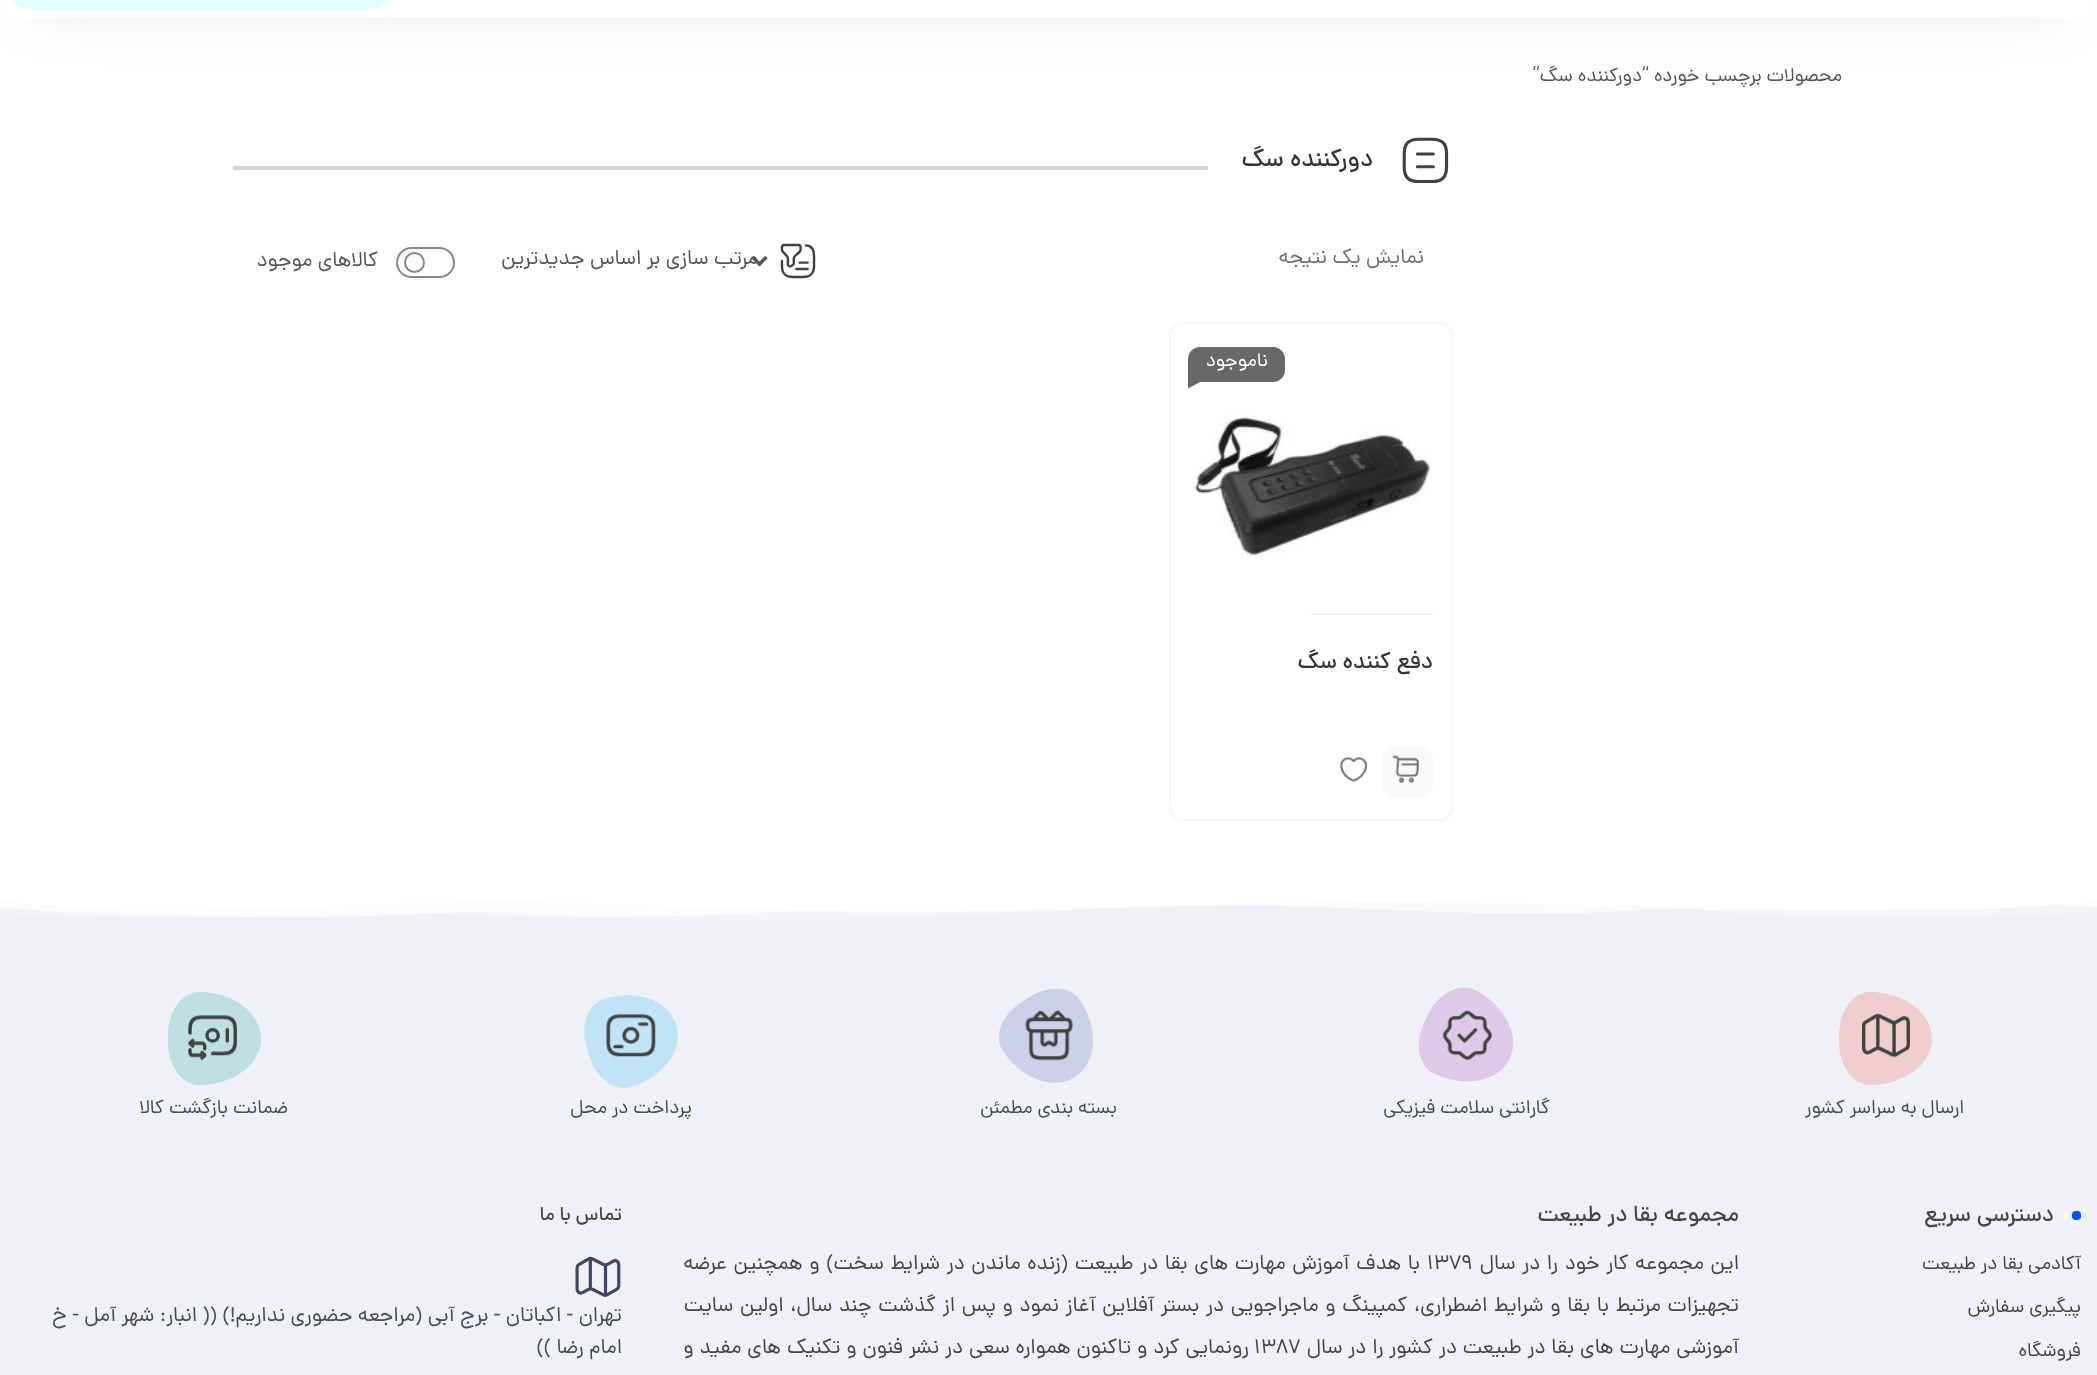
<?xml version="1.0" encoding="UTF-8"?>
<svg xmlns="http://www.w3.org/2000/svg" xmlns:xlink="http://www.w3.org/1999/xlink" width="2097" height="1375">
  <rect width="100%" height="100%" fill="#ffffff" />
  <rect x="42" y="-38" width="2014" height="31" fill="#676c76" fill-opacity="0.4" filter="blur(32.5px)" />
  <rect x="8" width="2082" height="18" fill="#ffffff" />
  <rect x="11" y="-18" width="379" height="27" rx="18" fill="#e2fffc" />
  <image x="1402" y="137" width="47" height="46" xlink:href="image1.png" />
  <rect x="233" y="166" width="975" height="4" fill="#d6d6d6" />
  <image x="780" y="243" width="36" height="36" xlink:href="image2.png" />
  <path d="M 752.5 257 l 7 7 l 7 -7" fill="none" stroke="#555555" stroke-width="3.5" />
  <rect x="397" y="248" width="57" height="29" rx="14.5" fill="none" stroke="#878990" stroke-width="2" />
  <circle cx="414.5" cy="262.5" r="9.5" fill="none" stroke="#878990" stroke-width="2" />
  <rect x="1171" y="324" width="280" height="495" rx="12" fill="#000000" fill-opacity="0.1" filter="blur(2px)" />
  <rect x="1171" y="324" width="280" height="495" rx="12" fill="#ffffff" />
  <path d="M 1200 347 h 73 c 6.5 0 12 5.5 12 12 v 11 c 0 6.5 -5.5 12 -12 12 h -85 v -23 c 0 -6.5 5.5 -12 12 -12 z" fill="#686868" />
  <path d="M 1188 380 h 16 l -16 8.5 z" fill="#686868" />
  <image x="1192" y="410" width="240" height="147" xlink:href="image3.png" />
  <rect x="1311" y="613" width="122" height="2" fill="#f1f1f1" />
  <rect x="1381" y="746" width="52" height="52" rx="12" fill="#f9f9f9" />
  <image x="1392" y="755" width="28" height="29" xlink:href="image4.png" />
  <image x="1339" y="757" width="29" height="25" xlink:href="image5.png" />
  <rect y="901" width="2097" height="474" fill="#eff1f6" />
  <image x="0" y="901" width="2097" height="19" xlink:href="image6.png" />
  <path d="M 1870 992 c 34 0 62 21 62 47 c 0 25 -28 46 -62 46 c -17 0 -31 -19 -31 -43 v -7 c 0 -24 14 -43 31 -43 z" fill="#f0ced0" />
  <image x="1862" y="1013" width="48" height="45" xlink:href="image7.png" />
  <path d="M 1475 990 c 31 16 46 47 34 70 c -11 22 -46 28 -76 13 c -15 -8 -19 -31 -8 -52 l 3 -7 c 11 -21 32 -32 47 -24 z" fill="#dec9e8" />
  <image x="1442" y="1010" width="50" height="51" xlink:href="image8.png" />
  <path d="M 1080 1000 c 19 29 17 63 -5 77 c -21 14 -54 2 -72 -26 c -10 -15 -1 -37 19 -49 l 6 -4 c 20 -13 43 -12 52 2 z" fill="#ccd1e9" />
  <image x="1025" y="1010" width="48" height="51" xlink:href="image9.png" />
  <path d="M 604 999 c 32 -10 65 1 72 26 c 8 24 -12 52 -45 62 c -16 5 -35 -9 -42 -31 l -2 -8 c -7 -22 0 -44 17 -49 z" fill="#c0e3f6" />
  <image x="606" y="1014" width="50" height="43" xlink:href="image10.png" />
  <path d="M 199 992 c 34 0 62 21 62 47 c 0 25 -28 46 -62 46 c -17 0 -31 -19 -31 -43 v -7 c 0 -24 14 -43 31 -43 z" fill="#bfdfe0" />
  <image x="188" y="1015" width="49" height="46" xlink:href="image11.png" />
  <rect x="2072" y="1211" width="9" height="9" rx="4" fill="#0050ff" />
  <image x="575" y="1256" width="46" height="41" xlink:href="image12.png" />
  <text x="1842" y="81" style="font-family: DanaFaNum; font-size: 19.25px; direction: rtl; fill: #555555">محصولات برچسب خورده</text>
  <text x="1649" y="81" style="font-family: DanaFaNum; font-size: 19.25px; direction: rtl; fill: #555555">“دورکننده سگ”</text>
  <text x="1373" y="166" style="font-family: DanaFaNum; font-size: 24.5px; font-weight: 500; direction: rtl; fill: #333333">دورکننده سگ</text>
  <text x="1424" y="263" style="font-family: DanaFaNum; font-size: 21px; direction: rtl; fill: #707070">نمایش یک نتیجه</text>
  <text x="758" y="264" style="font-family: DanaFaNum; font-size: 21px; direction: rtl; fill: #555555">مرتب سازی بر اساس جدیدترین</text>
  <text x="378" y="266" style="font-family: DanaFaNum; font-size: 21px; direction: rtl; fill: #555555">کالاهای موجود</text>
  <text x="1268" y="366" style="font-family: DanaFaNum; font-size: 19.25px; direction: rtl; fill: #ffffff">ناموجود</text>
  <text x="1433" y="668" style="font-family: DanaFaNum; font-size: 22.75px; font-weight: 500; direction: rtl; fill: #333333">دفع کننده سگ</text>
  <text x="1964" y="1113" style="font-family: DanaFaNum; font-size: 19.25px; direction: rtl; fill: #444c55">ارسال به سراسر کشور</text>
  <text x="1550" y="1113" style="font-family: DanaFaNum; font-size: 19.25px; direction: rtl; fill: #444c55">گارانتی سلامت فیزیکی</text>
  <text x="1117" y="1113" style="font-family: DanaFaNum; font-size: 19.25px; direction: rtl; fill: #444c55">بسته بندی مطمئن</text>
  <text x="692" y="1113" style="font-family: DanaFaNum; font-size: 19.25px; direction: rtl; fill: #444c55">پرداخت در محل</text>
  <text x="288" y="1113" style="font-family: DanaFaNum; font-size: 19.25px; direction: rtl; fill: #444c55">ضمانت بازگشت کالا</text>
  <text x="2054" y="1221" style="font-family: DanaFaNum; font-size: 22.75px; font-weight: 500; direction: rtl; fill: #454545">دسترسی سریع</text>
  <text x="2081" y="1269" style="font-family: DanaFaNum; font-size: 19.25px; direction: rtl; fill: #454545">آکادمی بقا در طبیعت</text>
  <text x="2081" y="1312" style="font-family: DanaFaNum; font-size: 19.25px; direction: rtl; fill: #454545">پیگیری سفارش</text>
  <text x="2081" y="1356" style="font-family: DanaFaNum; font-size: 19.25px; direction: rtl; fill: #454545">فروشگاه</text>
  <text x="1739" y="1221" style="font-family: DanaFaNum; font-size: 22.75px; font-weight: 500; direction: rtl; fill: #454545">مجموعه بقا در طبیعت</text>
  <text x="1739" y="1269" word-spacing="1.25" style="font-family: DanaFaNum; font-size: 21px; direction: rtl; fill: #454545">این مجموعه کار خود را در سال</text>
  <text x="1427" y="1269" style="font-family: DanaFaNum; font-size: 21px; fill: #454545">1379</text>
  <text x="1420" y="1269" word-spacing="1.3" style="font-family: DanaFaNum; font-size: 21px; direction: rtl; fill: #454545">با هدف آموزش مهارت های بقا در طبیعت (زنده ماندن در شرایط سخت) و همچنین عرضه</text>
  <text x="1739" y="1311" word-spacing="1.3" style="font-family: DanaFaNum; font-size: 21px; direction: rtl; fill: #454545">تجهیزات مرتبط با بقا و شرایط اضطراری، کمپینگ و ماجراجویی در بستر آفلاین آغاز نمود و پس از گذشت چند سال، اولین سایت</text>
  <text x="1739" y="1353" word-spacing="0.5" style="font-family: DanaFaNum; font-size: 21px; direction: rtl; fill: #454545">آموزشی مهارت های بقا در طبیعت در کشور را در سال</text>
  <text x="1254" y="1353" style="font-family: DanaFaNum; font-size: 21px; fill: #454545">1387</text>
  <text x="1249" y="1353" word-spacing="0.5" style="font-family: DanaFaNum; font-size: 21px; direction: rtl; fill: #454545">رونمایی کرد و تاکنون همواره سعی در نشر فنون و تکنیک های مفید و</text>
  <text x="622" y="1220" style="font-family: DanaFaNum; font-size: 19.25px; font-weight: 500; direction: rtl; fill: #454545">تماس با ما</text>
  <text x="622" y="1321" style="font-family: DanaFaNum; font-size: 21px; direction: rtl; fill: #444c55">تهران - اکباتان - برج آبی (مراجعه حضوری نداریم!) (( انبار: شهر آمل - خ</text>
  <text x="622" y="1353" style="font-family: DanaFaNum; font-size: 21px; direction: rtl; fill: #444c55">امام رضا ))</text>
</svg>
